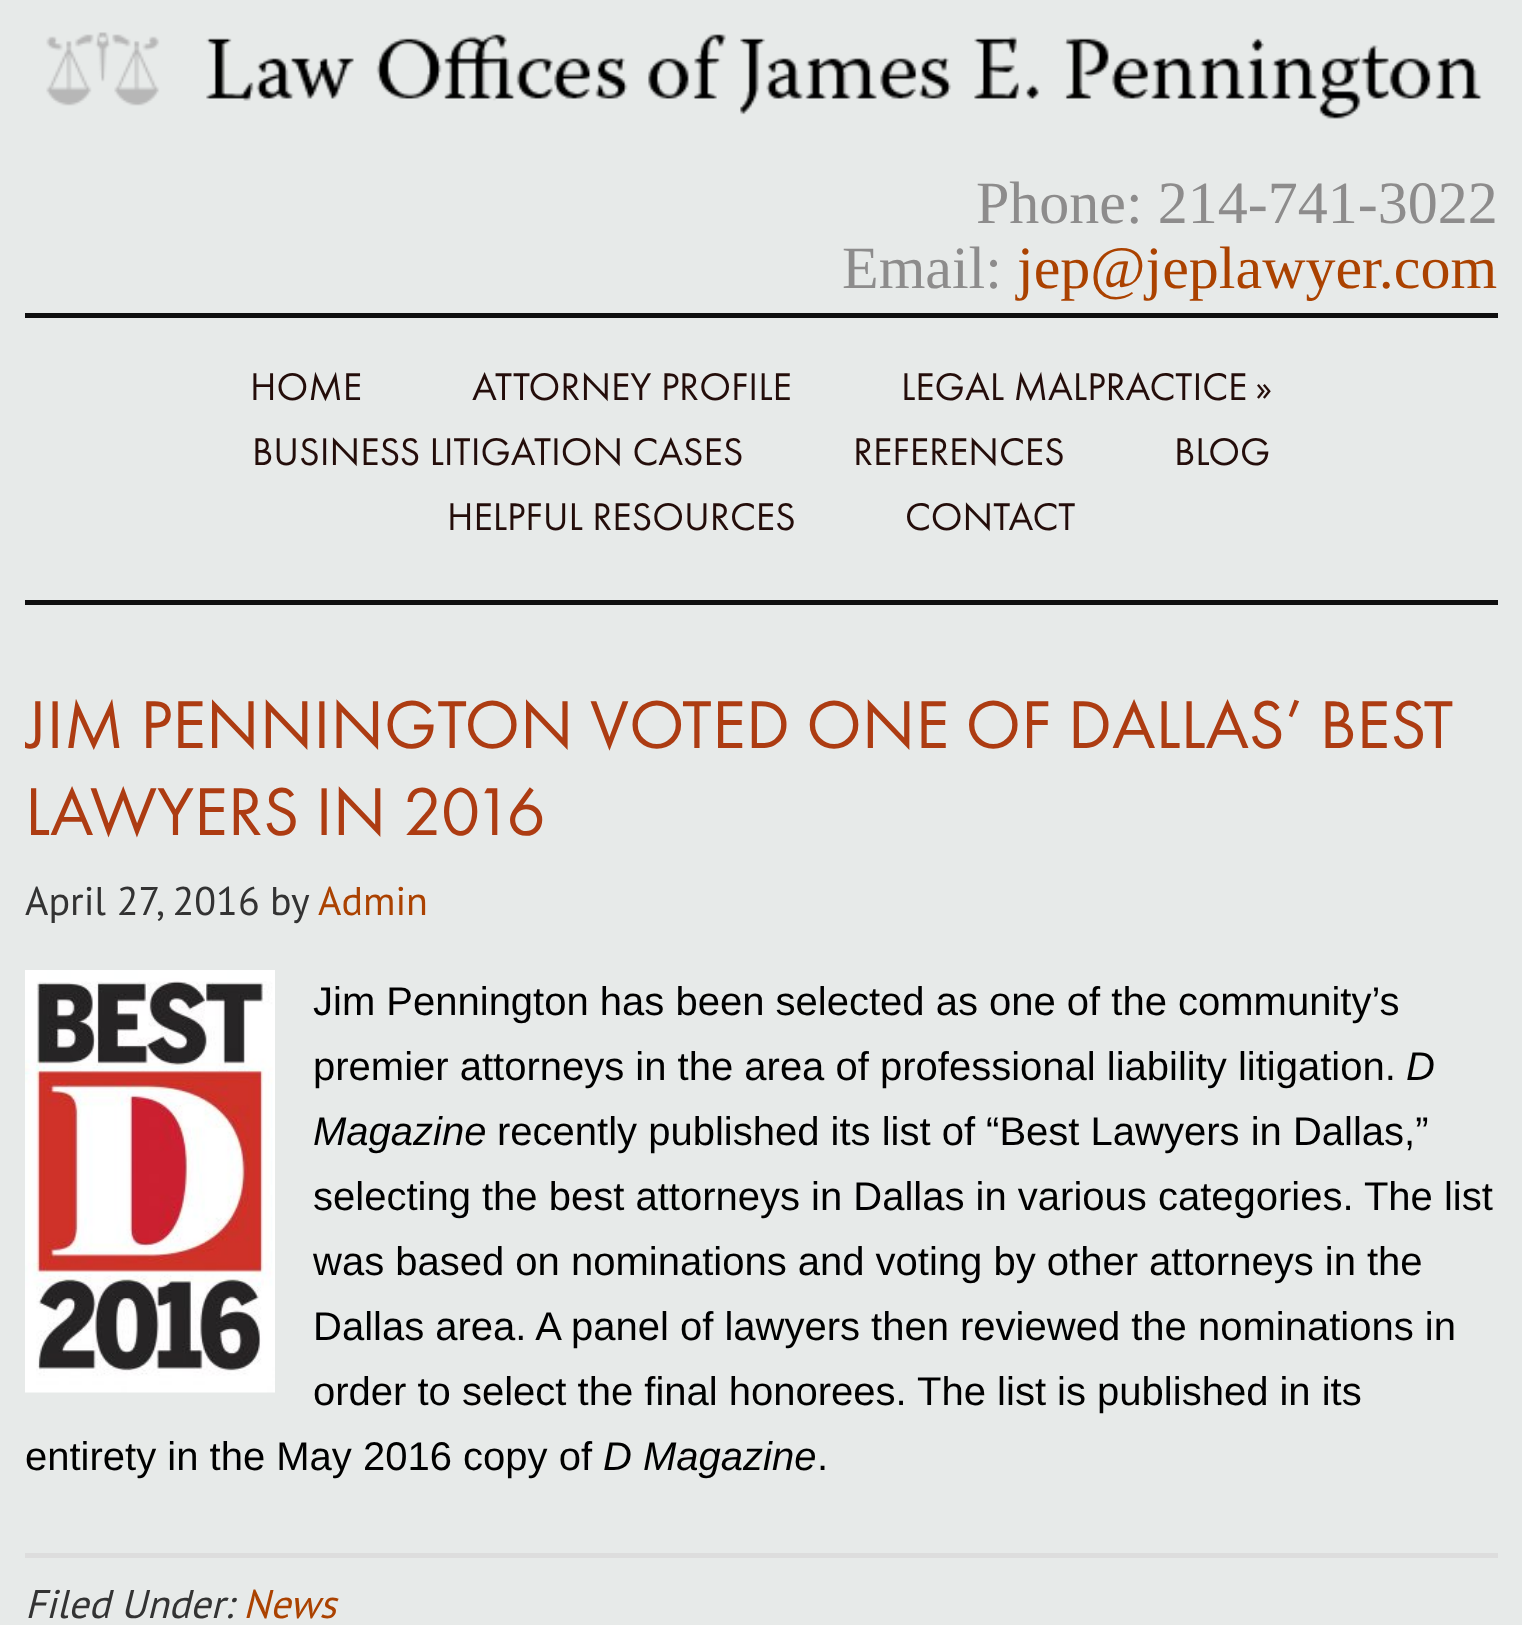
<?xml version="1.0" encoding="UTF-8"?>
<svg xmlns="http://www.w3.org/2000/svg" xmlns:xlink="http://www.w3.org/1999/xlink" width="1522" height="1625">
  <defs>
    <clipPath id="clip1"><rect x="25" y="630" width="1473" height="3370" /></clipPath>
  </defs>
  <rect width="100%" height="100%" fill="#e7eae9" />
  <image x="46" y="32" width="1436" height="87" xlink:href="image1.png" />
  <rect x="25" y="313" width="1473" height="5" fill="#0f0f0f" />
  <rect x="25" y="600" width="1473" height="5" fill="#0f0f0f" />
  <image x="25" y="970" width="250" height="423" xlink:href="image2.png" />
  <rect x="25" y="1553" width="1473" height="5" fill="#dddddd" />
  <text x="976" y="223" style="font-family: Liberation Serif; font-size: 60px; fill: #8d8c8c">Phone: 214-741-3022</text>
  <text x="842" y="288" style="font-family: Liberation Serif; font-size: 60px; fill: #8d8c8c">Email:</text>
  <text x="1017" y="288" style="font-family: Liberation Serif; font-size: 60px; fill: #ab4200">jep@jeplawyer.com</text>
  <text x="250" y="400" style="font-family: Futura PT; font-size: 40px; fill: #240d0a">HOME</text>
  <text x="472" y="400" style="font-family: Futura PT; font-size: 40px; fill: #240d0a">ATTORNEY PROFILE</text>
  <text x="901" y="400" style="font-family: Futura PT; font-size: 40px; fill: #240d0a">LEGAL MALPRACTICE</text>
  <text x="1255" y="400" style="font-family: Futura PT; font-size: 40px; fill: #240d0a">»</text>
  <text x="252" y="465" style="font-family: Futura PT; font-size: 40px; fill: #240d0a">BUSINESS LITIGATION CASES</text>
  <text x="853" y="465" style="font-family: Futura PT; font-size: 40px; fill: #240d0a">REFERENCES</text>
  <text x="1174" y="465" style="font-family: Futura PT; font-size: 40px; fill: #240d0a">BLOG</text>
  <text x="447" y="530" style="font-family: Futura PT; font-size: 40px; fill: #240d0a">HELPFUL RESOURCES</text>
  <text x="905" y="530" style="font-family: Futura PT; font-size: 40px; fill: #240d0a">CONTACT</text>
  <g clip-path="url(#clip1)">
    <text x="25" y="748" style="font-family: Futura PT; font-size: 70px; fill: #ad3c12">JIM PENNINGTON VOTED ONE OF DALLAS’ BEST</text>
  </g>
  <text x="25" y="835" style="font-family: Futura PT; font-size: 70px; fill: #ad3c12">LAWYERS IN 2016</text>
  <text x="25" y="915" style="font-family: PT Sans; font-size: 40px; fill: #333333">April 27, 2016</text>
  <text x="270" y="915" style="font-family: PT Sans; font-size: 40px; fill: #333333">by</text>
  <text x="318" y="915" style="font-family: PT Sans; font-size: 40px; fill: #ab4200">Admin</text>
  <text x="313" y="1015" style="font-family: Liberation Sans; font-size: 40px; fill: #000000">Jim Pennington has been selected as one of the community’s</text>
  <text x="313" y="1080" style="font-family: Liberation Sans; font-size: 40px; fill: #000000">premier attorneys in the area of professional liability litigation.</text>
  <text x="1406" y="1080" style="font-family: Liberation Sans; font-size: 40px; font-style: italic; fill: #000000">D</text>
  <text x="313" y="1145" style="font-family: Liberation Sans; font-size: 40px; font-style: italic; fill: #000000">Magazine</text>
  <text x="497" y="1145" style="font-family: Liberation Sans; font-size: 40px; fill: #000000">recently published its list of “Best Lawyers in Dallas,”</text>
  <text x="313" y="1210" style="font-family: Liberation Sans; font-size: 40px; fill: #000000">selecting the best attorneys in Dallas in various categories. The list</text>
  <text x="313" y="1275" style="font-family: Liberation Sans; font-size: 40px; fill: #000000">was based on nominations and voting by other attorneys in the</text>
  <text x="313" y="1340" style="font-family: Liberation Sans; font-size: 40px; fill: #000000">Dallas area. A panel of lawyers then reviewed the nominations in</text>
  <text x="313" y="1405" style="font-family: Liberation Sans; font-size: 40px; fill: #000000">order to select the final honorees. The list is published in its</text>
  <text x="25" y="1470" style="font-family: Liberation Sans; font-size: 40px; fill: #000000">entirety in the May 2016 copy of</text>
  <text x="603" y="1470" style="font-family: Liberation Sans; font-size: 40px; font-style: italic; fill: #000000">D Magazine</text>
  <text x="817" y="1470" style="font-family: Liberation Sans; font-size: 40px; fill: #000000">.</text>
  <text x="25" y="1618" style="font-family: PT Sans; font-size: 40px; font-style: italic; fill: #333333">Filed Under:</text>
  <text x="243" y="1618" style="font-family: PT Sans; font-size: 40px; font-style: italic; fill: #ab4200">News</text>
</svg>
